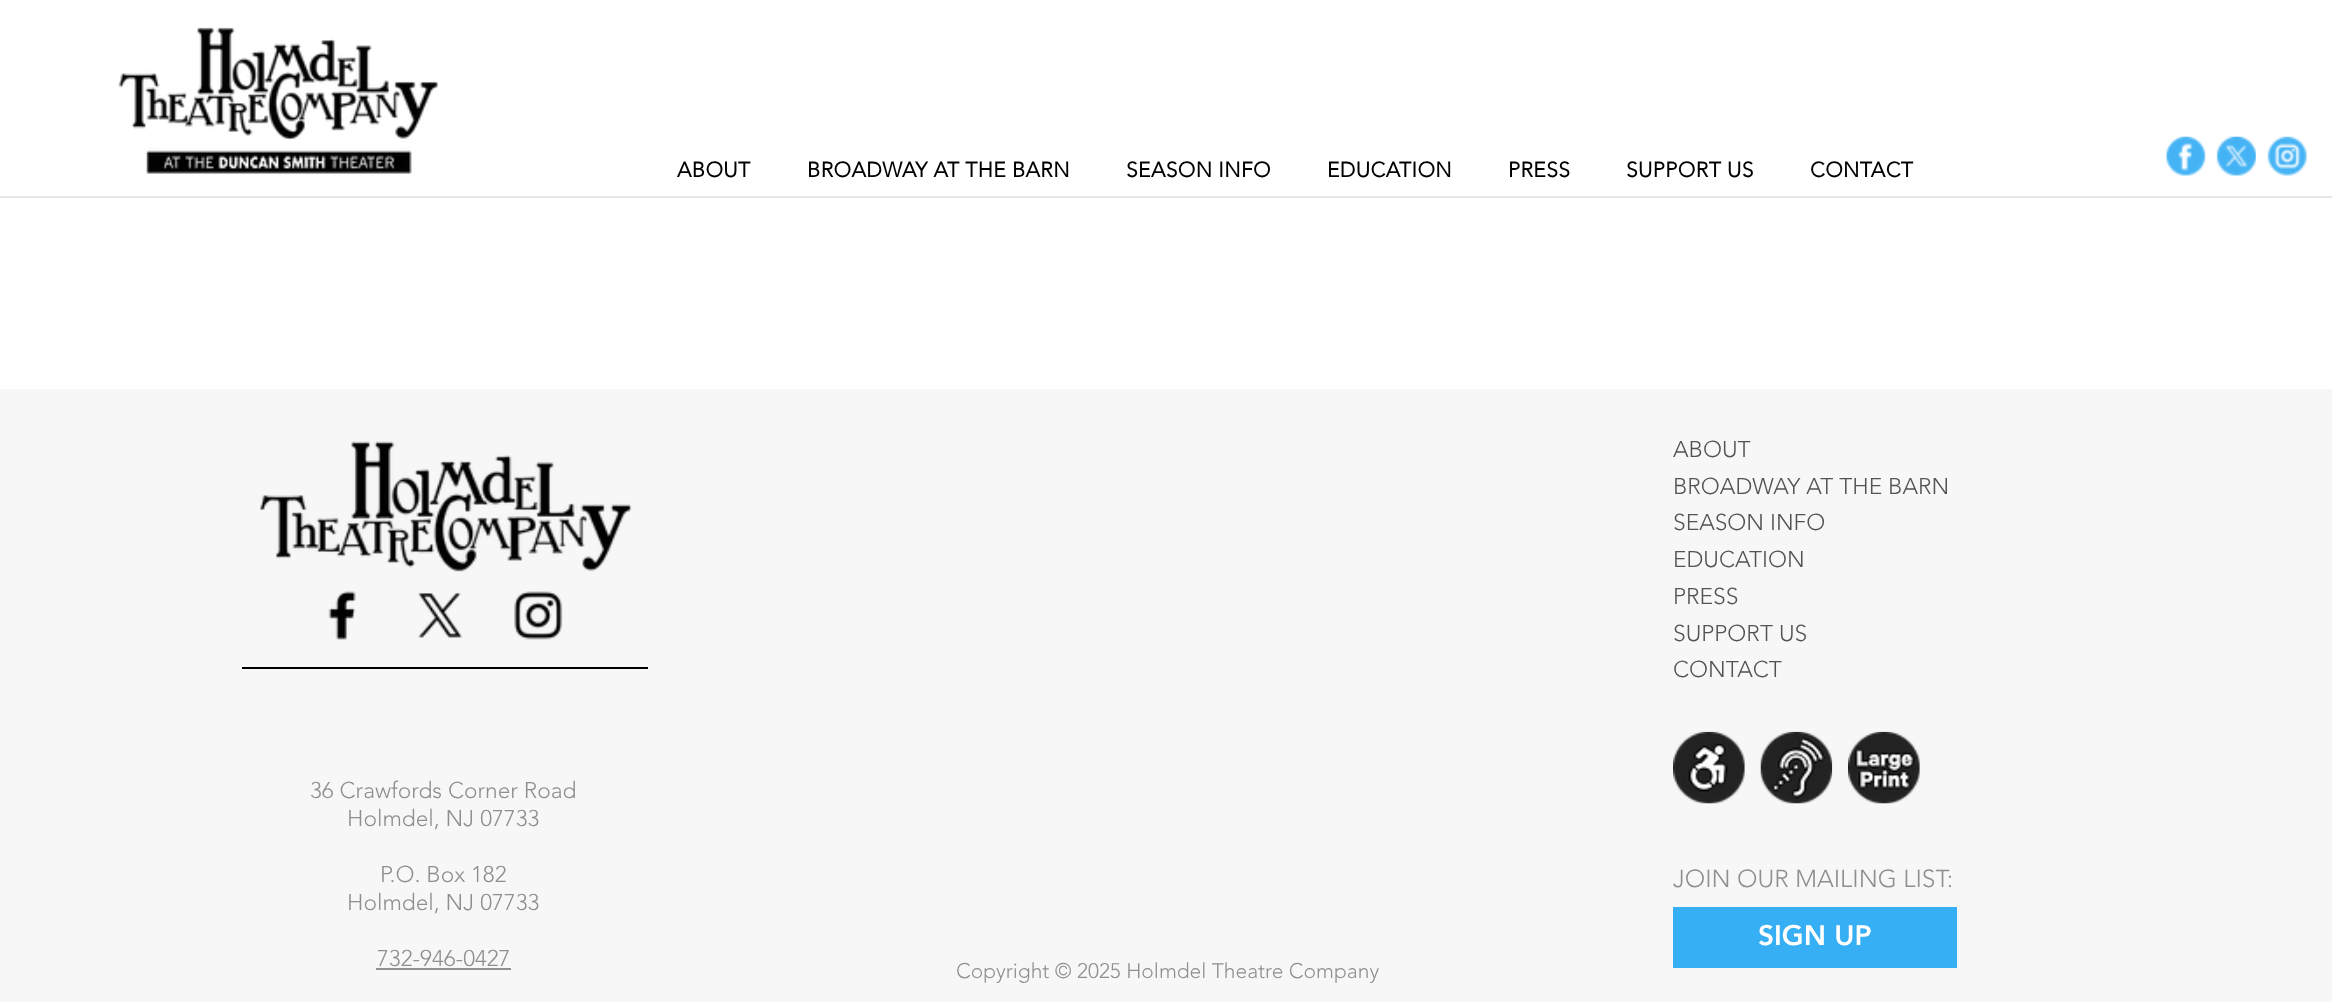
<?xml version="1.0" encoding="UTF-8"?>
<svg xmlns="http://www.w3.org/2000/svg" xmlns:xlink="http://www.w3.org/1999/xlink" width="2332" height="1002">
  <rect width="100%" height="100%" fill="#ffffff" />
  <image x="118" y="27" width="320" height="147" xlink:href="image1.png" />
  <image x="2165" y="136" width="41" height="40" xlink:href="image2.png" />
  <image x="2216" y="136" width="40" height="40" xlink:href="image3.png" />
  <image x="2267" y="136" width="40" height="40" xlink:href="image4.png" />
  <rect y="196" width="2332" height="2" fill="#e6e6e6" />
  <rect y="389" width="2332" height="613" fill="#f7f7f7" />
  <image x="259" y="441" width="373" height="131" xlink:href="image5.png" />
  <image x="328" y="591" width="28" height="49" xlink:href="image6.png" />
  <image x="418" y="592" width="45" height="46" xlink:href="image7.png" />
  <image x="514" y="591" width="49" height="49" xlink:href="image8.png" />
  <rect x="242" y="667" width="406" height="2" fill="#000000" />
  <rect x="376" y="968" width="135" height="2" fill="#8f8f8f" />
  <image x="1673" y="731" width="72" height="73" xlink:href="image9.png" />
  <image x="1760" y="731" width="73" height="73" xlink:href="image10.png" />
  <image x="1848" y="731" width="72" height="73" xlink:href="image11.png" />
  <rect x="1673" y="907" width="284" height="61" fill="#36aff4" />
  <text x="677" y="177" style="font-family: 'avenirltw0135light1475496'; font-size: 21px; font-weight: bold; letter-spacing: 0.4px; fill: #000000">ABOUT</text>
  <text x="807" y="177" style="font-family: 'avenirltw0135light1475496'; font-size: 21px; font-weight: bold; letter-spacing: 0.4px; fill: #000000">BROADWAY AT THE BARN</text>
  <text x="1126" y="177" style="font-family: 'avenirltw0135light1475496'; font-size: 21px; font-weight: bold; letter-spacing: 0.4px; fill: #000000">SEASON INFO</text>
  <text x="1327" y="177" style="font-family: 'avenirltw0135light1475496'; font-size: 21px; font-weight: bold; letter-spacing: 0.4px; fill: #000000">EDUCATION</text>
  <text x="1508" y="177" style="font-family: 'avenirltw0135light1475496'; font-size: 21px; font-weight: bold; letter-spacing: 0.4px; fill: #000000">PRESS</text>
  <text x="1626" y="177" style="font-family: 'avenirltw0135light1475496'; font-size: 21px; font-weight: bold; letter-spacing: 0.4px; fill: #000000">SUPPORT US</text>
  <text x="1810" y="177" style="font-family: 'avenirltw0135light1475496'; font-size: 21px; font-weight: bold; letter-spacing: 0.4px; fill: #000000">CONTACT</text>
  <text x="310" y="798" style="font-family: 'avenirltw0135light1475496'; font-size: 22.75px; font-weight: 300; fill: #8f8f8f">36 Crawfords Corner Road</text>
  <text x="347" y="826" style="font-family: 'avenirltw0135light1475496'; font-size: 22.75px; font-weight: 300; fill: #8f8f8f">Holmdel, NJ 07733</text>
  <text x="380" y="882" style="font-family: 'avenirltw0135light1475496'; font-size: 22.75px; font-weight: 300; fill: #8f8f8f">P.O. Box 182</text>
  <text x="347" y="910" style="font-family: 'avenirltw0135light1475496'; font-size: 22.75px; font-weight: 300; fill: #8f8f8f">Holmdel, NJ 07733</text>
  <text x="377" y="966" style="font-family: 'avenirltw0135light1475496'; font-size: 22.75px; font-weight: 300; fill: #8f8f8f">732-946-0427</text>
  <text x="1673" y="457" style="font-family: 'avenirltw0135light1475496'; font-size: 22.75px; font-weight: 300; fill: #555252">ABOUT</text>
  <text x="1673" y="494" style="font-family: 'avenirltw0135light1475496'; font-size: 22.75px; font-weight: 300; fill: #555252">BROADWAY AT THE BARN</text>
  <text x="1673" y="530" style="font-family: 'avenirltw0135light1475496'; font-size: 22.75px; font-weight: 300; fill: #555252">SEASON INFO</text>
  <text x="1673" y="567" style="font-family: 'avenirltw0135light1475496'; font-size: 22.75px; font-weight: 300; fill: #555252">EDUCATION</text>
  <text x="1673" y="604" style="font-family: 'avenirltw0135light1475496'; font-size: 22.75px; font-weight: 300; fill: #555252">PRESS</text>
  <text x="1673" y="641" style="font-family: 'avenirltw0135light1475496'; font-size: 22.75px; font-weight: 300; fill: #555252">SUPPORT US</text>
  <text x="1673" y="677" style="font-family: 'avenirltw0135light1475496'; font-size: 22.75px; font-weight: 300; fill: #555252">CONTACT</text>
  <text x="1673" y="887" style="font-family: 'avenirltw0135light1475496'; font-size: 24.5px; font-weight: 300; fill: #8f8f8f">JOIN OUR MAILING LIST:</text>
  <text x="1758" y="945" style="font-family: 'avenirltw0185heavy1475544'; font-size: 28px; font-weight: 900; fill: #ffffff">SIGN UP</text>
  <text x="956" y="978" style="font-family: 'avenirltw0135light1475496'; font-size: 21px; font-weight: 300; fill: #8f8f8f">Copyright © 2025 Holmdel Theatre Company</text>
</svg>
